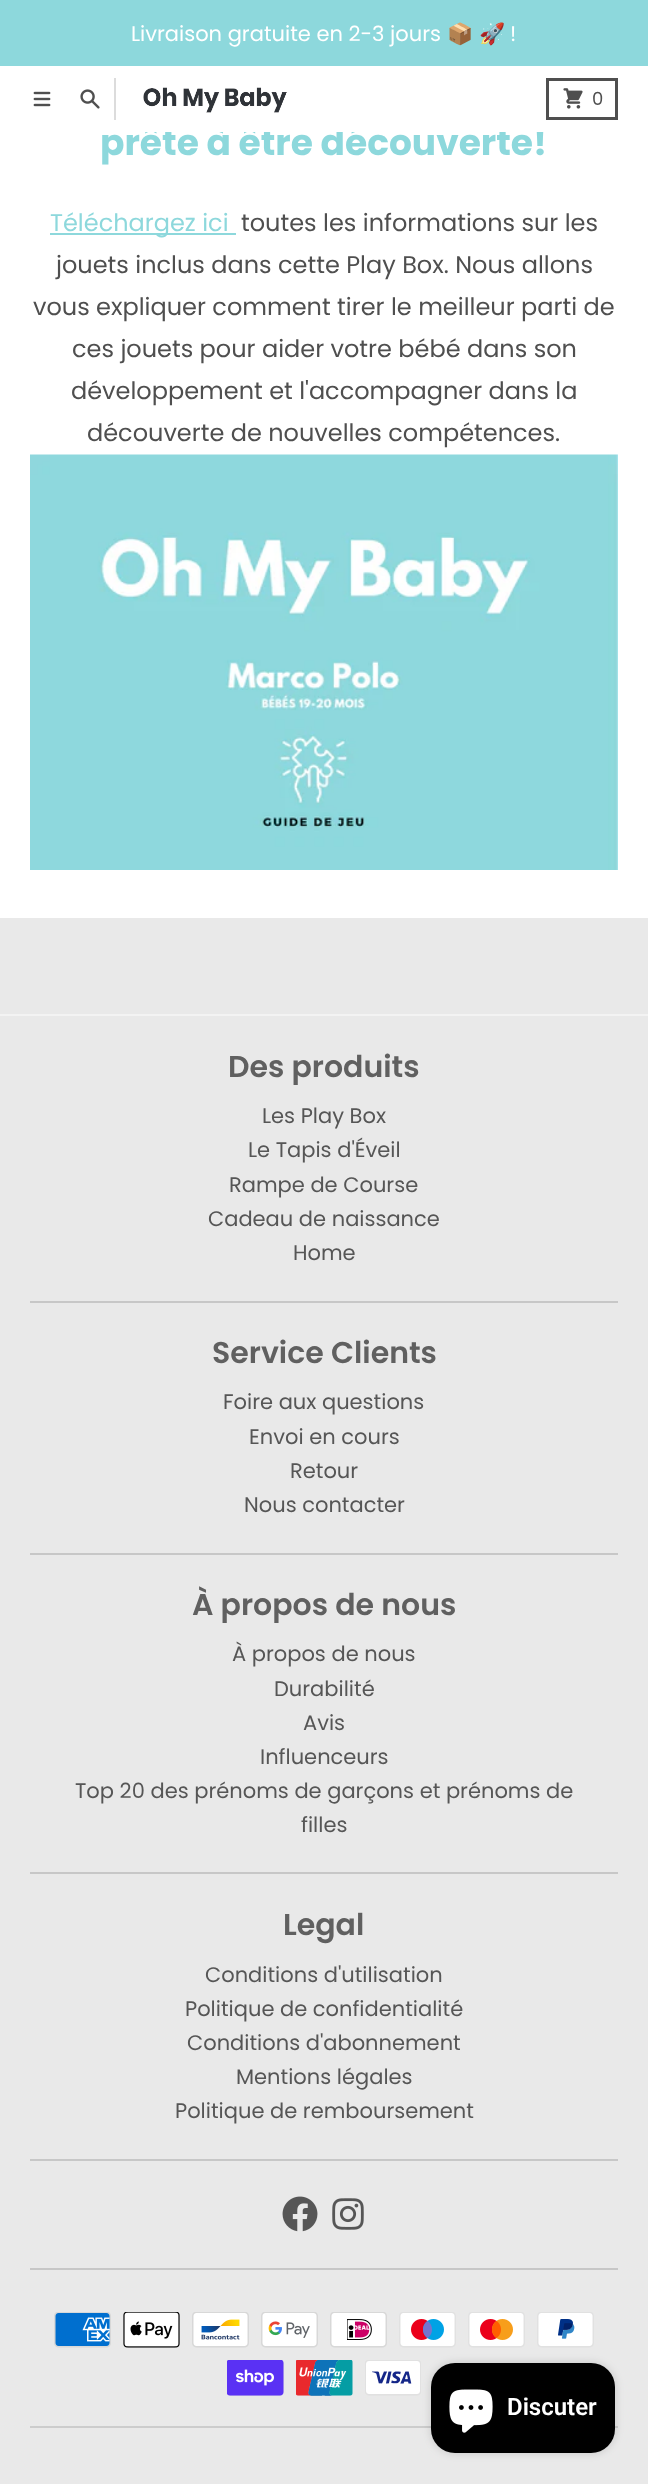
<?xml version="1.0" encoding="UTF-8"?>
<svg xmlns="http://www.w3.org/2000/svg" xmlns:xlink="http://www.w3.org/1999/xlink" width="648" height="2484">
  <rect width="100%" height="100%" fill="#e9e9e9" />
  <rect width="648" height="66" fill="#8dd8dc" />
  <rect y="132" width="648" height="786" fill="#ffffff" />
  <rect x="50" y="233" width="186" height="2" fill="#8dd8dc" />
  <image x="30" y="454" width="588" height="416" xlink:href="image5.png" />
  <rect y="1014" width="648" height="2" fill="#f3f3f3" />
  <rect x="30" y="1301" width="588" height="2" fill="#c7c7c7" />
  <rect x="30" y="1553" width="588" height="2" fill="#c7c7c7" />
  <rect x="30" y="1872" width="588" height="2" fill="#c7c7c7" />
  <rect x="30" y="2159" width="588" height="2" fill="#c7c7c7" />
  <image x="282" y="2196" width="36" height="36" xlink:href="image6.png" />
  <image x="332" y="2198" width="32" height="32" xlink:href="image7.png" />
  <rect x="30" y="2268" width="588" height="2" fill="#c7c7c7" />
  <rect x="30" y="2426" width="588" height="2" fill="#cccccc" />
  <image x="54" y="2312" width="57" height="36" xlink:href="image8.png" />
  <image x="123" y="2312" width="57" height="36" xlink:href="image9.png" />
  <image x="192" y="2312" width="57" height="36" xlink:href="image10.png" />
  <image x="261" y="2312" width="57" height="36" xlink:href="image11.png" />
  <image x="330" y="2312" width="57" height="36" xlink:href="image12.png" />
  <image x="399" y="2312" width="57" height="36" xlink:href="image13.png" />
  <image x="468" y="2312" width="57" height="36" xlink:href="image14.png" />
  <image x="537" y="2312" width="57" height="36" xlink:href="image15.png" />
  <image x="227" y="2360" width="57" height="36" xlink:href="image16.png" />
  <image x="296" y="2360" width="57" height="36" xlink:href="image17.png" />
  <image x="365" y="2360" width="56" height="36" xlink:href="image18.png" />
  <rect x="431" y="2363" width="184" height="90" rx="24" fill="#000000" fill-opacity="0.15" filter="blur(4px)" />
  <rect x="431" y="2363" width="184" height="90" rx="24" fill="#000000" />
  <image x="449" y="2389" width="44" height="44" xlink:href="image19.png" />
  <text x="131" y="41" style="font-family: Poppins; font-size: 21px; fill: #ffffff">Livraison gratuite en 2-3 jours</text>
  <text x="447" y="41" style="font-family: Noto Color Emoji; font-size: 21px; fill: #ffffff">📦</text>
  <text x="479" y="41" style="font-family: Noto Color Emoji; font-size: 21px; fill: #ffffff">🚀</text>
  <text x="510" y="41" style="font-family: Poppins; font-size: 21px; fill: #ffffff">!</text>
  <text x="100" y="155" style="font-family: Poppins; font-size: 36px; font-weight: bold; fill: #8dd8dc">prête à être découverte!</text>
  <rect y="66" width="648" height="66" fill="#ffffff" />
  <rect x="547.5" y="79.5" width="69" height="39" fill="none" stroke="#4f4f4f" stroke-width="3" />
  <image x="563" y="88" width="20" height="21" xlink:href="image4.png" />
  <text x="592" y="105" style="font-family: Poppins; font-size: 18px; fill: #4f4f4f">0</text>
  <image x="80" y="89" width="20" height="20" xlink:href="image2.png" />
  <image x="33" y="91" width="18" height="16" xlink:href="image1.png" />
  <image x="143" y="87" width="144" height="26" xlink:href="image3.png" />
  <rect x="114" y="78" width="2" height="42" fill="#dcdcdc" />
  <text x="50" y="231" style="font-family: Poppins; font-size: 24px; fill: #8dd8dc">Téléchargez ici</text>
  <text x="241" y="231" style="font-family: Poppins; font-size: 24px; fill: #4f4f4f">toutes les informations sur les</text>
  <text x="56" y="273" style="font-family: Poppins; font-size: 24px; fill: #4f4f4f">jouets inclus dans cette Play Box. Nous allons</text>
  <text x="33" y="315" style="font-family: Poppins; font-size: 24px; fill: #4f4f4f">vous expliquer comment tirer le meilleur parti de</text>
  <text x="72" y="357" style="font-family: Poppins; font-size: 24px; fill: #4f4f4f">ces jouets pour aider votre bébé dans son</text>
  <text x="71" y="399" style="font-family: Poppins; font-size: 24px; fill: #4f4f4f">développement et l'accompagner dans la</text>
  <text x="87" y="441" style="font-family: Poppins; font-size: 24px; fill: #4f4f4f">découverte de nouvelles compétences.</text>
  <text x="228" y="1077" style="font-family: Poppins; font-size: 30px; font-weight: 600; fill: #606060">Des produits</text>
  <text x="262" y="1123" style="font-family: Poppins; font-size: 21px; fill: #565656">Les Play Box</text>
  <text x="248" y="1157" style="font-family: Poppins; font-size: 21px; fill: #565656">Le Tapis d'Éveil</text>
  <text x="229" y="1192" style="font-family: Poppins; font-size: 21px; fill: #565656">Rampe de Course</text>
  <text x="208" y="1226" style="font-family: Poppins; font-size: 21px; fill: #565656">Cadeau de naissance</text>
  <text x="293" y="1260" style="font-family: Poppins; font-size: 21px; fill: #565656">Home</text>
  <text x="212" y="1363" style="font-family: Poppins; font-size: 30px; font-weight: 600; fill: #606060">Service Clients</text>
  <text x="223" y="1409" style="font-family: Poppins; font-size: 21px; fill: #565656">Foire aux questions</text>
  <text x="249" y="1444" style="font-family: Poppins; font-size: 21px; fill: #565656">Envoi en cours</text>
  <text x="290" y="1478" style="font-family: Poppins; font-size: 21px; fill: #565656">Retour</text>
  <text x="244" y="1512" style="font-family: Poppins; font-size: 21px; fill: #565656">Nous contacter</text>
  <text x="192" y="1615" style="font-family: Poppins; font-size: 30px; font-weight: 600; fill: #606060">À propos de nous</text>
  <text x="232" y="1661" style="font-family: Poppins; font-size: 21px; fill: #565656">À propos de nous</text>
  <text x="274" y="1696" style="font-family: Poppins; font-size: 21px; fill: #565656">Durabilité</text>
  <text x="303" y="1730" style="font-family: Poppins; font-size: 21px; fill: #565656">Avis</text>
  <text x="260" y="1764" style="font-family: Poppins; font-size: 21px; fill: #565656">Influenceurs</text>
  <text x="75" y="1798" style="font-family: Poppins; font-size: 21px; fill: #565656">Top 20 des prénoms de garçons et prénoms de</text>
  <text x="301" y="1832" style="font-family: Poppins; font-size: 21px; fill: #565656">filles</text>
  <text x="283" y="1935" style="font-family: Poppins; font-size: 30px; font-weight: 600; fill: #606060">Legal</text>
  <text x="205" y="1982" style="font-family: Poppins; font-size: 21px; fill: #565656">Conditions d'utilisation</text>
  <text x="185" y="2016" style="font-family: Poppins; font-size: 21px; fill: #565656">Politique de confidentialité</text>
  <text x="187" y="2050" style="font-family: Poppins; font-size: 21px; fill: #565656">Conditions d'abonnement</text>
  <text x="236" y="2084" style="font-family: Poppins; font-size: 21px; fill: #565656">Mentions légales</text>
  <text x="175" y="2118" style="font-family: Poppins; font-size: 21px; fill: #565656">Politique de remboursement</text>
  <text x="507" y="2415" style="font-family: Roboto; font-size: 24px; font-weight: 600; fill: #ffffff">Discuter</text>
</svg>
